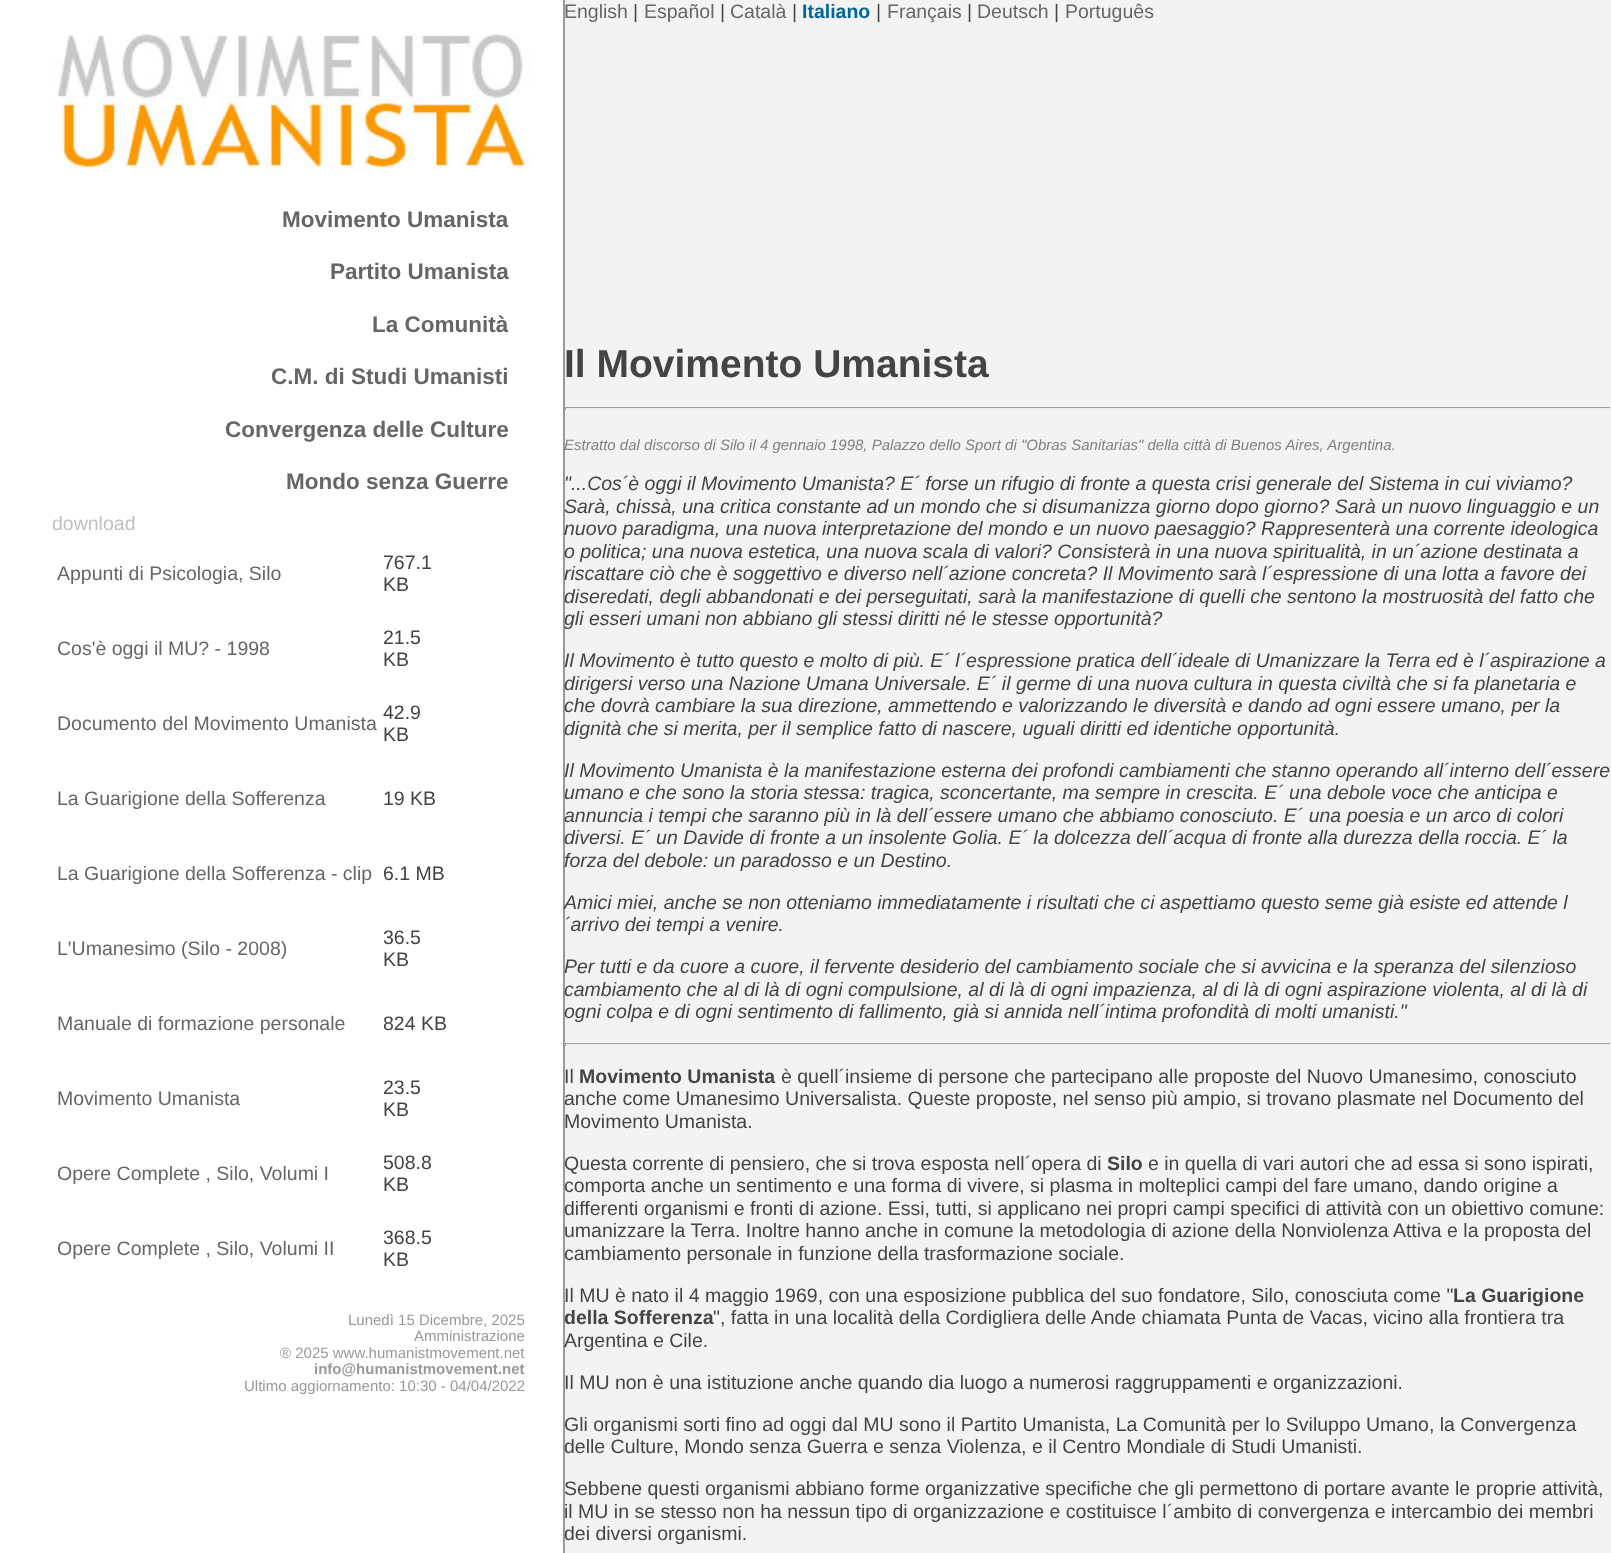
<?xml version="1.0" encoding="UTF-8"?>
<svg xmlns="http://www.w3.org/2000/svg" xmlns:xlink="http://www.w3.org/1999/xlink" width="1611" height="1553">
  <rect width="100%" height="100%" fill="#f3f3f3" />
  <rect width="563" height="1553" fill="#ffffff" />
  <rect x="563" width="2" height="1553" fill="#999999" />
  <image x="52" y="33" width="481" height="136" xlink:href="image1.png" />
  <rect x="564" y="407" width="1047" height="1" fill="#9f9f9f" />
  <rect x="1610" y="407" width="1" height="3" fill="#eeeeee" />
  <rect x="564" y="408" width="1047" height="2" fill="#eeeeee" />
  <rect x="564" y="407" width="2" height="3" fill="#9f9f9f" />
  <rect x="564" y="1043" width="1047" height="1" fill="#9f9f9f" />
  <rect x="1610" y="1043" width="1" height="3" fill="#eeeeee" />
  <rect x="564" y="1044" width="1047" height="2" fill="#eeeeee" />
  <rect x="564" y="1043" width="2" height="3" fill="#9f9f9f" />
  <text x="282" y="227" style="font-family: Liberation Sans; font-size: 22.5px; font-weight: bold; fill: #666666">Movimento Umanista</text>
  <text x="330" y="279" style="font-family: Liberation Sans; font-size: 22.5px; font-weight: bold; fill: #666666">Partito Umanista</text>
  <text x="372" y="332" style="font-family: Liberation Sans; font-size: 22.5px; font-weight: bold; fill: #666666">La Comunità</text>
  <text x="271" y="384" style="font-family: Liberation Sans; font-size: 22.5px; font-weight: bold; fill: #666666">C.M. di Studi Umanisti</text>
  <text x="225" y="437" style="font-family: Liberation Sans; font-size: 22.5px; font-weight: bold; fill: #666666">Convergenza delle Culture</text>
  <text x="286" y="489" style="font-family: Liberation Sans; font-size: 22.5px; font-weight: bold; fill: #666666">Mondo senza Guerre</text>
  <text x="52" y="530" style="font-family: Liberation Sans; font-size: 19.5px; fill: #c0c0c0">download</text>
  <text x="57" y="580" style="font-family: Liberation Sans; font-size: 19.5px; fill: #666666">Appunti di Psicologia, Silo</text>
  <text x="383" y="569" style="font-family: Liberation Sans; font-size: 19.5px; fill: #444444">767.1</text>
  <text x="383" y="591" style="font-family: Liberation Sans; font-size: 19.5px; fill: #444444">KB</text>
  <text x="57" y="655" style="font-family: Liberation Sans; font-size: 19.5px; fill: #666666">Cos'è oggi il MU? - 1998</text>
  <text x="383" y="644" style="font-family: Liberation Sans; font-size: 19.5px; fill: #444444">21.5</text>
  <text x="383" y="666" style="font-family: Liberation Sans; font-size: 19.5px; fill: #444444">KB</text>
  <text x="57" y="730" style="font-family: Liberation Sans; font-size: 19.5px; fill: #666666">Documento del Movimento Umanista</text>
  <text x="383" y="719" style="font-family: Liberation Sans; font-size: 19.5px; fill: #444444">42.9</text>
  <text x="383" y="741" style="font-family: Liberation Sans; font-size: 19.5px; fill: #444444">KB</text>
  <text x="57" y="805" style="font-family: Liberation Sans; font-size: 19.5px; fill: #666666">La Guarigione della Sofferenza</text>
  <text x="383" y="805" style="font-family: Liberation Sans; font-size: 19.5px; fill: #444444">19 KB</text>
  <text x="57" y="880" style="font-family: Liberation Sans; font-size: 19.5px; fill: #666666">La Guarigione della Sofferenza - clip</text>
  <text x="383" y="880" style="font-family: Liberation Sans; font-size: 19.5px; fill: #444444">6.1 MB</text>
  <text x="57" y="955" style="font-family: Liberation Sans; font-size: 19.5px; fill: #666666">L'Umanesimo (Silo - 2008)</text>
  <text x="383" y="944" style="font-family: Liberation Sans; font-size: 19.5px; fill: #444444">36.5</text>
  <text x="383" y="966" style="font-family: Liberation Sans; font-size: 19.5px; fill: #444444">KB</text>
  <text x="57" y="1030" style="font-family: Liberation Sans; font-size: 19.5px; fill: #666666">Manuale di formazione personale</text>
  <text x="383" y="1030" style="font-family: Liberation Sans; font-size: 19.5px; fill: #444444">824 KB</text>
  <text x="57" y="1105" style="font-family: Liberation Sans; font-size: 19.5px; fill: #666666">Movimento Umanista</text>
  <text x="383" y="1094" style="font-family: Liberation Sans; font-size: 19.5px; fill: #444444">23.5</text>
  <text x="383" y="1116" style="font-family: Liberation Sans; font-size: 19.5px; fill: #444444">KB</text>
  <text x="57" y="1180" style="font-family: Liberation Sans; font-size: 19.5px; fill: #666666">Opere Complete , Silo, Volumi I</text>
  <text x="383" y="1169" style="font-family: Liberation Sans; font-size: 19.5px; fill: #444444">508.8</text>
  <text x="383" y="1191" style="font-family: Liberation Sans; font-size: 19.5px; fill: #444444">KB</text>
  <text x="57" y="1255" style="font-family: Liberation Sans; font-size: 19.5px; fill: #666666">Opere Complete , Silo, Volumi II</text>
  <text x="383" y="1244" style="font-family: Liberation Sans; font-size: 19.5px; fill: #444444">368.5</text>
  <text x="383" y="1266" style="font-family: Liberation Sans; font-size: 19.5px; fill: #444444">KB</text>
  <text x="348" y="1325" style="font-family: Liberation Sans; font-size: 15px; fill: #999999">Lunedì 15 Dicembre, 2025</text>
  <text x="414" y="1341" style="font-family: Liberation Sans; font-size: 15px; fill: #999999">Amministrazione</text>
  <text x="280" y="1358" style="font-family: Liberation Sans; font-size: 15px; fill: #999999">® 2025 www.humanistmovement.net</text>
  <text x="314" y="1374" style="font-family: Liberation Sans; font-size: 15px; font-weight: bold; fill: #999999">info@humanistmovement.net</text>
  <text x="244" y="1391" style="font-family: Liberation Sans; font-size: 15px; fill: #999999">Ultimo aggiornamento: 10:30 - 04/04/2022</text>
  <text x="564" y="18" style="font-family: Liberation Sans; font-size: 19.5px; fill: #666666">English</text>
  <text x="633" y="18" style="font-family: Liberation Sans; font-size: 19.5px; fill: #444444">|</text>
  <text x="644" y="18" style="font-family: Liberation Sans; font-size: 19.5px; fill: #666666">Español</text>
  <text x="720" y="18" style="font-family: Liberation Sans; font-size: 19.5px; fill: #444444">|</text>
  <text x="730" y="18" style="font-family: Liberation Sans; font-size: 19.5px; fill: #666666">Català</text>
  <text x="792" y="18" style="font-family: Liberation Sans; font-size: 19.5px; fill: #444444">|</text>
  <text x="802" y="18" style="font-family: Liberation Sans; font-size: 19.5px; font-weight: bold; fill: #006699">Italiano</text>
  <text x="876" y="18" style="font-family: Liberation Sans; font-size: 19.5px; fill: #444444">|</text>
  <text x="887" y="18" style="font-family: Liberation Sans; font-size: 19.5px; fill: #666666">Français</text>
  <text x="967" y="18" style="font-family: Liberation Sans; font-size: 19.5px; fill: #444444">|</text>
  <text x="977" y="18" style="font-family: Liberation Sans; font-size: 19.5px; fill: #666666">Deutsch</text>
  <text x="1054" y="18" style="font-family: Liberation Sans; font-size: 19.5px; fill: #444444">|</text>
  <text x="1065" y="18" style="font-family: Liberation Sans; font-size: 19.5px; fill: #666666">Português</text>
  <text x="564" y="377" style="font-family: Liberation Sans; font-size: 39px; font-weight: bold; fill: #444444">Il Movimento Umanista</text>
  <text x="564" y="450" style="font-family: Liberation Sans; font-size: 15px; font-style: italic; fill: #808080">Estratto dal discorso di Silo il 4 gennaio 1998, Palazzo dello Sport di "Obras Sanitarias" della città di Buenos Aires, Argentina.</text>
  <text x="564" y="490" style="font-family: Liberation Sans; font-size: 19.5px; font-style: italic; fill: #444444">"...Cos´è oggi il Movimento Umanista? E´ forse un rifugio di fronte a questa crisi generale del Sistema in cui viviamo?</text>
  <text x="564" y="513" style="font-family: Liberation Sans; font-size: 19.5px; font-style: italic; fill: #444444">Sarà, chissà, una critica constante ad un mondo che si disumanizza giorno dopo giorno? Sarà un nuovo linguaggio e un</text>
  <text x="564" y="535" style="font-family: Liberation Sans; font-size: 19.5px; font-style: italic; fill: #444444">nuovo paradigma, una nuova interpretazione del mondo e un nuovo paesaggio? Rappresenterà una corrente ideologica</text>
  <text x="564" y="558" style="font-family: Liberation Sans; font-size: 19.5px; font-style: italic; fill: #444444">o politica; una nuova estetica, una nuova scala di valori? Consisterà in una nuova spiritualità, in un´azione destinata a</text>
  <text x="564" y="580" style="font-family: Liberation Sans; font-size: 19.5px; font-style: italic; fill: #444444">riscattare ciò che è soggettivo e diverso nell´azione concreta? Il Movimento sarà l´espressione di una lotta a favore dei</text>
  <text x="564" y="603" style="font-family: Liberation Sans; font-size: 19.5px; font-style: italic; fill: #444444">diseredati, degli abbandonati e dei perseguitati, sarà la manifestazione di quelli che sentono la mostruosità del fatto che</text>
  <text x="564" y="625" style="font-family: Liberation Sans; font-size: 19.5px; font-style: italic; fill: #444444">gli esseri umani non abbiano gli stessi diritti né le stesse opportunità?</text>
  <text x="564" y="667" style="font-family: Liberation Sans; font-size: 19.5px; font-style: italic; fill: #444444">Il Movimento è tutto questo e molto di più. E´ l´espressione pratica dell´ideale di Umanizzare la Terra ed è l´aspirazione a</text>
  <text x="564" y="690" style="font-family: Liberation Sans; font-size: 19.5px; font-style: italic; fill: #444444">dirigersi verso una Nazione Umana Universale. E´ il germe di una nuova cultura in questa civiltà che si fa planetaria e</text>
  <text x="564" y="712" style="font-family: Liberation Sans; font-size: 19.5px; font-style: italic; fill: #444444">che dovrà cambiare la sua direzione, ammettendo e valorizzando le diversità e dando ad ogni essere umano, per la</text>
  <text x="564" y="735" style="font-family: Liberation Sans; font-size: 19.5px; font-style: italic; fill: #444444">dignità che si merita, per il semplice fatto di nascere, uguali diritti ed identiche opportunità.</text>
  <text x="564" y="777" style="font-family: Liberation Sans; font-size: 19.5px; font-style: italic; fill: #444444">Il Movimento Umanista è la manifestazione esterna dei profondi cambiamenti che stanno operando all´interno dell´essere</text>
  <text x="564" y="799" style="font-family: Liberation Sans; font-size: 19.5px; font-style: italic; fill: #444444">umano e che sono la storia stessa: tragica, sconcertante, ma sempre in crescita. E´ una debole voce che anticipa e</text>
  <text x="564" y="822" style="font-family: Liberation Sans; font-size: 19.5px; font-style: italic; fill: #444444">annuncia i tempi che saranno più in là dell´essere umano che abbiamo conosciuto. E´ una poesia e un arco di colori</text>
  <text x="564" y="844" style="font-family: Liberation Sans; font-size: 19.5px; font-style: italic; fill: #444444">diversi. E´ un Davide di fronte a un insolente Golia. E´ la dolcezza dell´acqua di fronte alla durezza della roccia. E´ la</text>
  <text x="564" y="867" style="font-family: Liberation Sans; font-size: 19.5px; font-style: italic; fill: #444444">forza del debole: un paradosso e un Destino.</text>
  <text x="564" y="909" style="font-family: Liberation Sans; font-size: 19.5px; font-style: italic; fill: #444444">Amici miei, anche se non otteniamo immediatamente i risultati che ci aspettiamo questo seme già esiste ed attende l</text>
  <text x="564" y="931" style="font-family: Liberation Sans; font-size: 19.5px; font-style: italic; fill: #444444">´arrivo dei tempi a venire.</text>
  <text x="564" y="973" style="font-family: Liberation Sans; font-size: 19.5px; font-style: italic; fill: #444444">Per tutti e da cuore a cuore, il fervente desiderio del cambiamento sociale che si avvicina e la speranza del silenzioso</text>
  <text x="564" y="996" style="font-family: Liberation Sans; font-size: 19.5px; font-style: italic; fill: #444444">cambiamento che al di là di ogni compulsione, al di là di ogni impazienza, al di là di ogni aspirazione violenta, al di là di</text>
  <text x="564" y="1018" style="font-family: Liberation Sans; font-size: 19.5px; font-style: italic; fill: #444444">ogni colpa e di ogni sentimento di fallimento, già si annida nell´intima profondità di molti umanisti."</text>
  <text x="564" y="1083" style="font-family: Liberation Sans; font-size: 19.5px; fill: #444444">Il</text>
  <text x="579" y="1083" style="font-family: Liberation Sans; font-size: 19.5px; font-weight: bold; fill: #444444">Movimento Umanista</text>
  <text x="781" y="1083" style="font-family: Liberation Sans; font-size: 19.5px; fill: #444444">è quell´insieme di persone che partecipano alle proposte del Nuovo Umanesimo, conosciuto</text>
  <text x="564" y="1105" style="font-family: Liberation Sans; font-size: 19.5px; fill: #444444">anche come Umanesimo Universalista. Queste proposte, nel senso più ampio, si trovano plasmate nel Documento del</text>
  <text x="564" y="1128" style="font-family: Liberation Sans; font-size: 19.5px; fill: #444444">Movimento Umanista.</text>
  <text x="564" y="1170" style="font-family: Liberation Sans; font-size: 19.5px; fill: #444444">Questa corrente di pensiero, che si trova esposta nell´opera di</text>
  <text x="1107" y="1170" style="font-family: Liberation Sans; font-size: 19.5px; font-weight: bold; fill: #444444">Silo</text>
  <text x="1148" y="1170" style="font-family: Liberation Sans; font-size: 19.5px; fill: #444444">e in quella di vari autori che ad essa si sono ispirati,</text>
  <text x="564" y="1192" style="font-family: Liberation Sans; font-size: 19.5px; fill: #444444">comporta anche un sentimento e una forma di vivere, si plasma in molteplici campi del fare umano, dando origine a</text>
  <text x="564" y="1215" style="font-family: Liberation Sans; font-size: 19.5px; fill: #444444">differenti organismi e fronti di azione. Essi, tutti, si applicano nei propri campi specifici di attività con un obiettivo comune:</text>
  <text x="564" y="1237" style="font-family: Liberation Sans; font-size: 19.5px; fill: #444444">umanizzare la Terra. Inoltre hanno anche in comune la metodologia di azione della Nonviolenza Attiva e la proposta del</text>
  <text x="564" y="1260" style="font-family: Liberation Sans; font-size: 19.5px; fill: #444444">cambiamento personale in funzione della trasformazione sociale.</text>
  <text x="564" y="1302" style="font-family: Liberation Sans; font-size: 19.5px; fill: #444444">Il MU è nato il 4 maggio 1969, con una esposizione pubblica del suo fondatore, Silo, conosciuta come "</text>
  <text x="1453" y="1302" style="font-family: Liberation Sans; font-size: 19.5px; font-weight: bold; fill: #444444">La Guarigione</text>
  <text x="564" y="1324" style="font-family: Liberation Sans; font-size: 19.5px; font-weight: bold; fill: #444444">della Sofferenza</text>
  <text x="713" y="1324" style="font-family: Liberation Sans; font-size: 19.5px; fill: #444444">", fatta in una località della Cordigliera delle Ande chiamata Punta de Vacas, vicino alla frontiera tra</text>
  <text x="564" y="1347" style="font-family: Liberation Sans; font-size: 19.5px; fill: #444444">Argentina e Cile.</text>
  <text x="564" y="1389" style="font-family: Liberation Sans; font-size: 19.5px; fill: #444444">Il MU non è una istituzione anche quando dia luogo a numerosi raggruppamenti e organizzazioni.</text>
  <text x="564" y="1431" style="font-family: Liberation Sans; font-size: 19.5px; fill: #444444">Gli organismi sorti fino ad oggi dal MU sono il Partito Umanista, La Comunità per lo Sviluppo Umano, la Convergenza</text>
  <text x="564" y="1453" style="font-family: Liberation Sans; font-size: 19.5px; fill: #444444">delle Culture, Mondo senza Guerra e senza Violenza, e il Centro Mondiale di Studi Umanisti.</text>
  <text x="564" y="1495" style="font-family: Liberation Sans; font-size: 19.5px; fill: #444444">Sebbene questi organismi abbiano forme organizzative specifiche che gli permettono di portare avante le proprie attività,</text>
  <text x="564" y="1518" style="font-family: Liberation Sans; font-size: 19.5px; fill: #444444">il MU in se stesso non ha nessun tipo di organizzazione e costituisce l´ambito di convergenza e intercambio dei membri</text>
  <text x="564" y="1540" style="font-family: Liberation Sans; font-size: 19.5px; fill: #444444">dei diversi organismi.</text>
</svg>
